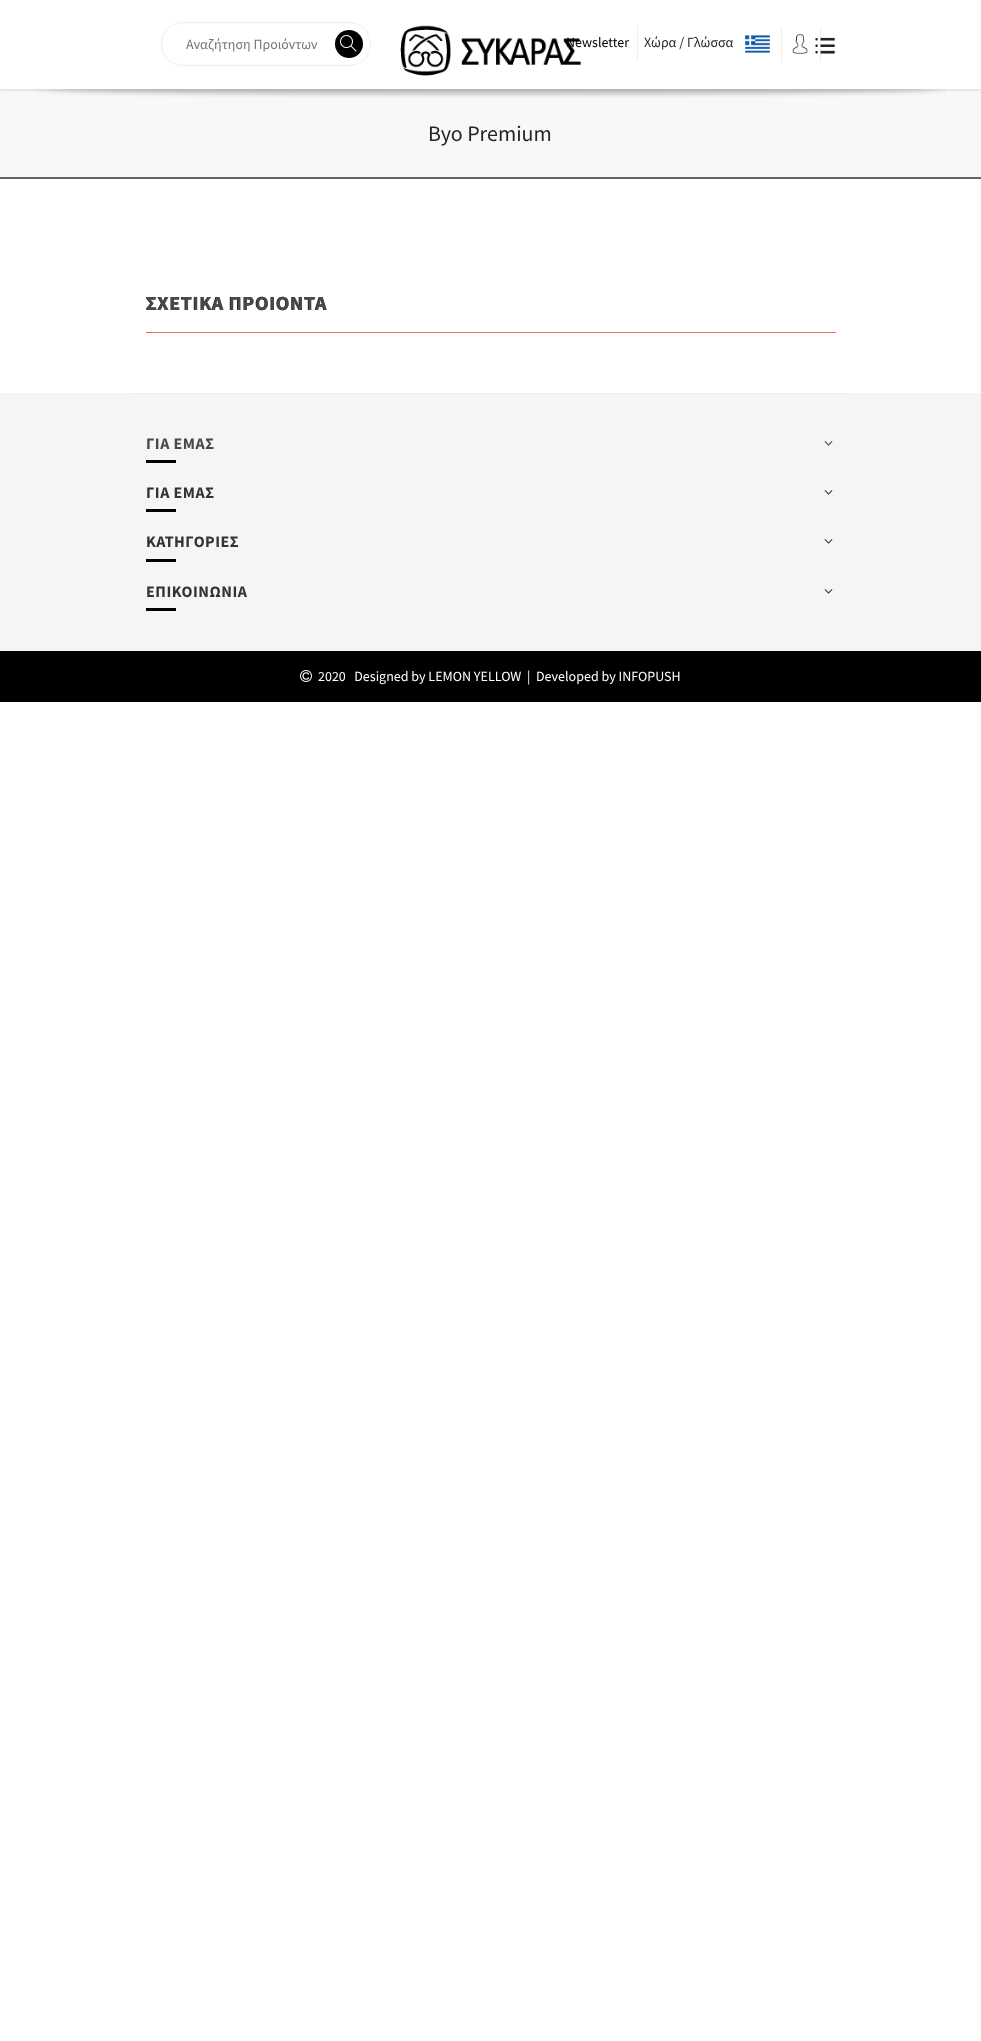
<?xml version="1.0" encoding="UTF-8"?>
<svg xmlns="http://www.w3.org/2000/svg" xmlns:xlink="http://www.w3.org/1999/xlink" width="981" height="2041">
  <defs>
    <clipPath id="clip1"><rect x="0" y="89" width="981" height="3" /></clipPath>
  </defs>
  <rect width="100%" height="100%" fill="#ffffff" />
  <rect y="89" width="981" height="88" fill="#f8f8f8" />
  <image x="36" y="89" width="910" height="9" xlink:href="image6.png" />
  <g clip-path="url(#clip1)">
    <rect width="981" height="89" fill="#000000" fill-opacity="0.2" filter="blur(2px)" />
  </g>
  <rect x="161.5" y="22.5" width="209" height="43" rx="21.5" fill="none" stroke="#eeeeee" />
  <circle cx="349" cy="44" r="14" fill="#000000" />
  <image x="340" y="35" width="17" height="17" xlink:href="image1.png" />
  <image x="400" y="25" width="182" height="51" xlink:href="image2.png" />
  <rect x="637" y="26" width="1" height="35" fill="#eeeeee" />
  <image x="745" y="35" width="25" height="18" xlink:href="image3.png" />
  <rect x="781" y="27" width="1" height="35" fill="#eeeeee" />
  <image x="792" y="34" width="16" height="20" xlink:href="image4.png" />
  <rect x="820" y="27" width="1" height="35" fill="#eeeeee" />
  <image x="815" y="37" width="20" height="17" xlink:href="image5.png" />
  <rect y="177" width="981" height="2" fill="#646565" />
  <image x="146" y="296" width="181" height="15" xlink:href="image7.png" />
  <rect x="146" y="332" width="690" height="1" fill="#f26a5b" />
  <rect y="393" width="981" height="258" fill="#f5f5f5" />
  <rect x="131" y="393" width="720" height="1" fill="#eeeeee" />
  <image x="824" y="441" width="9" height="5" xlink:href="image8.png" />
  <rect x="146" y="460" width="30" height="3" fill="#000000" />
  <image x="824" y="490" width="9" height="5" xlink:href="image9.png" />
  <rect x="146" y="509" width="30" height="3" fill="#000000" />
  <image x="824" y="539" width="9" height="5" xlink:href="image9.png" />
  <rect x="146" y="559" width="30" height="3" fill="#000000" />
  <image x="824" y="589" width="9" height="5" xlink:href="image9.png" />
  <rect x="146" y="608" width="30" height="3" fill="#000000" />
  <rect y="651" width="981" height="51" fill="#000000" />
  <image x="300" y="670" width="12" height="12" xlink:href="image10.png" />
  <text x="186" y="49" style="font-family: Source Sans Pro; font-size: 14px; fill: #757575">Αναζήτηση Προιόντων</text>
  <text x="566" y="47" style="font-family: Source Sans Pro; font-size: 14px; fill: #000000">Newsletter</text>
  <text x="644" y="47" style="font-family: Source Sans Pro; font-size: 14px; fill: #212529">Χώρα / Γλώσσα</text>
  <text x="428" y="141" style="font-family: Source Sans Pro; font-size: 22px; fill: #212529">Byo Premium</text>
  <text x="146" y="310" style="font-family: Source Sans Pro; font-size: 20px; font-weight: bold; letter-spacing: 0.6px; fill: #494949">ΣΧΕΤΙΚΑ ΠΡΟΙΟΝΤΑ</text>
  <text x="146" y="449" style="font-family: Source Sans Pro; font-size: 16px; font-weight: bold; letter-spacing: 0.5px; fill: #494949">ΓΙΑ ΕΜΑΣ</text>
  <text x="146" y="498" style="font-family: Source Sans Pro; font-size: 16px; font-weight: bold; letter-spacing: 0.5px; fill: #333333">ΓΙΑ ΕΜΑΣ</text>
  <text x="146" y="547" style="font-family: Source Sans Pro; font-size: 16px; font-weight: bold; letter-spacing: 0.5px; fill: #333333">ΚΑΤΗΓΟΡΙΕΣ</text>
  <text x="146" y="597" style="font-family: Source Sans Pro; font-size: 16px; font-weight: bold; letter-spacing: 0.5px; fill: #333333">ΕΠΙΚΟΙΝΩΝΙΑ</text>
  <text x="318" y="681" style="font-family: Source Sans Pro; font-size: 14px; fill: #ffffff" xml:space="preserve">2020   Designed by LEMON YELLOW</text>
  <text x="527" y="681" style="font-family: Source Sans Pro; font-size: 14px; fill: #ffffff" xml:space="preserve">|  Developed by INFOPUSH</text>
</svg>
